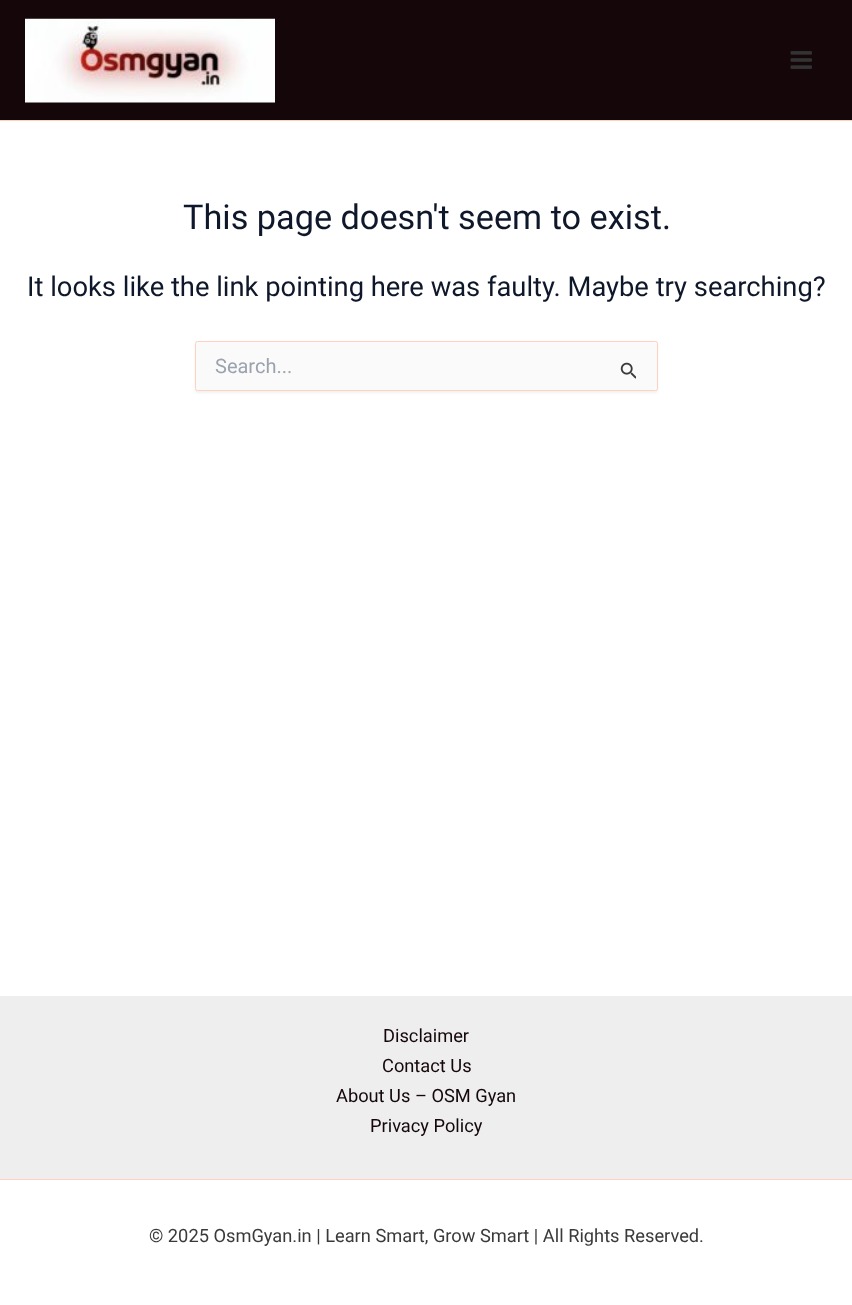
<?xml version="1.0" encoding="UTF-8"?>
<svg xmlns="http://www.w3.org/2000/svg" xmlns:xlink="http://www.w3.org/1999/xlink" width="852" height="1305">
  <rect width="100%" height="100%" fill="#ffffff" />
  <rect width="852" height="120" fill="#140609" />
  <rect y="120" width="852" height="1" fill="#ffd1bf" />
  <image x="25" y="18" width="250" height="85" xlink:href="image1.png" />
  <image x="790" y="51" width="22" height="18" xlink:href="image2.png" />
  <rect x="195" y="343" width="463" height="50" rx="2.5" fill="#000000" fill-opacity="0.05" filter="blur(1px)" />
  <rect x="195.5" y="341.5" width="462" height="49" rx="2" fill="#fafafa" stroke="#ffd1bf" />
  <image x="620" y="362" width="16" height="17" xlink:href="image3.png" />
  <rect y="996" width="852" height="183" fill="#eeeeee" />
  <rect y="1179" width="852" height="1" fill="#ffd1bf" />
  <text x="183" y="229" style="font-family: Roboto; font-size: 34.25px; fill: #0f172a">This page doesn't seem to exist.</text>
  <text x="27" y="296" style="font-family: Roboto; font-size: 27.35px; fill: #0f172a">It looks like the link pointing here was faulty. Maybe try searching?</text>
  <text x="215" y="373" style="font-family: Roboto; font-size: 20px; fill: #9ca3af">Search...</text>
  <text x="383" y="1042" style="font-family: Roboto; font-size: 18.25px; fill: #140609">Disclaimer</text>
  <text x="382" y="1072" style="font-family: Roboto; font-size: 18.25px; fill: #140609">Contact Us</text>
  <text x="336" y="1102" style="font-family: Roboto; font-size: 18.25px; fill: #140609">About Us – OSM Gyan</text>
  <text x="370" y="1132" style="font-family: Roboto; font-size: 18.25px; fill: #140609">Privacy Policy</text>
  <text x="149" y="1242" style="font-family: Roboto; font-size: 18.25px; fill: #3a3a3a">© 2025 OsmGyan.in | Learn Smart, Grow Smart | All Rights Reserved.</text>
</svg>
